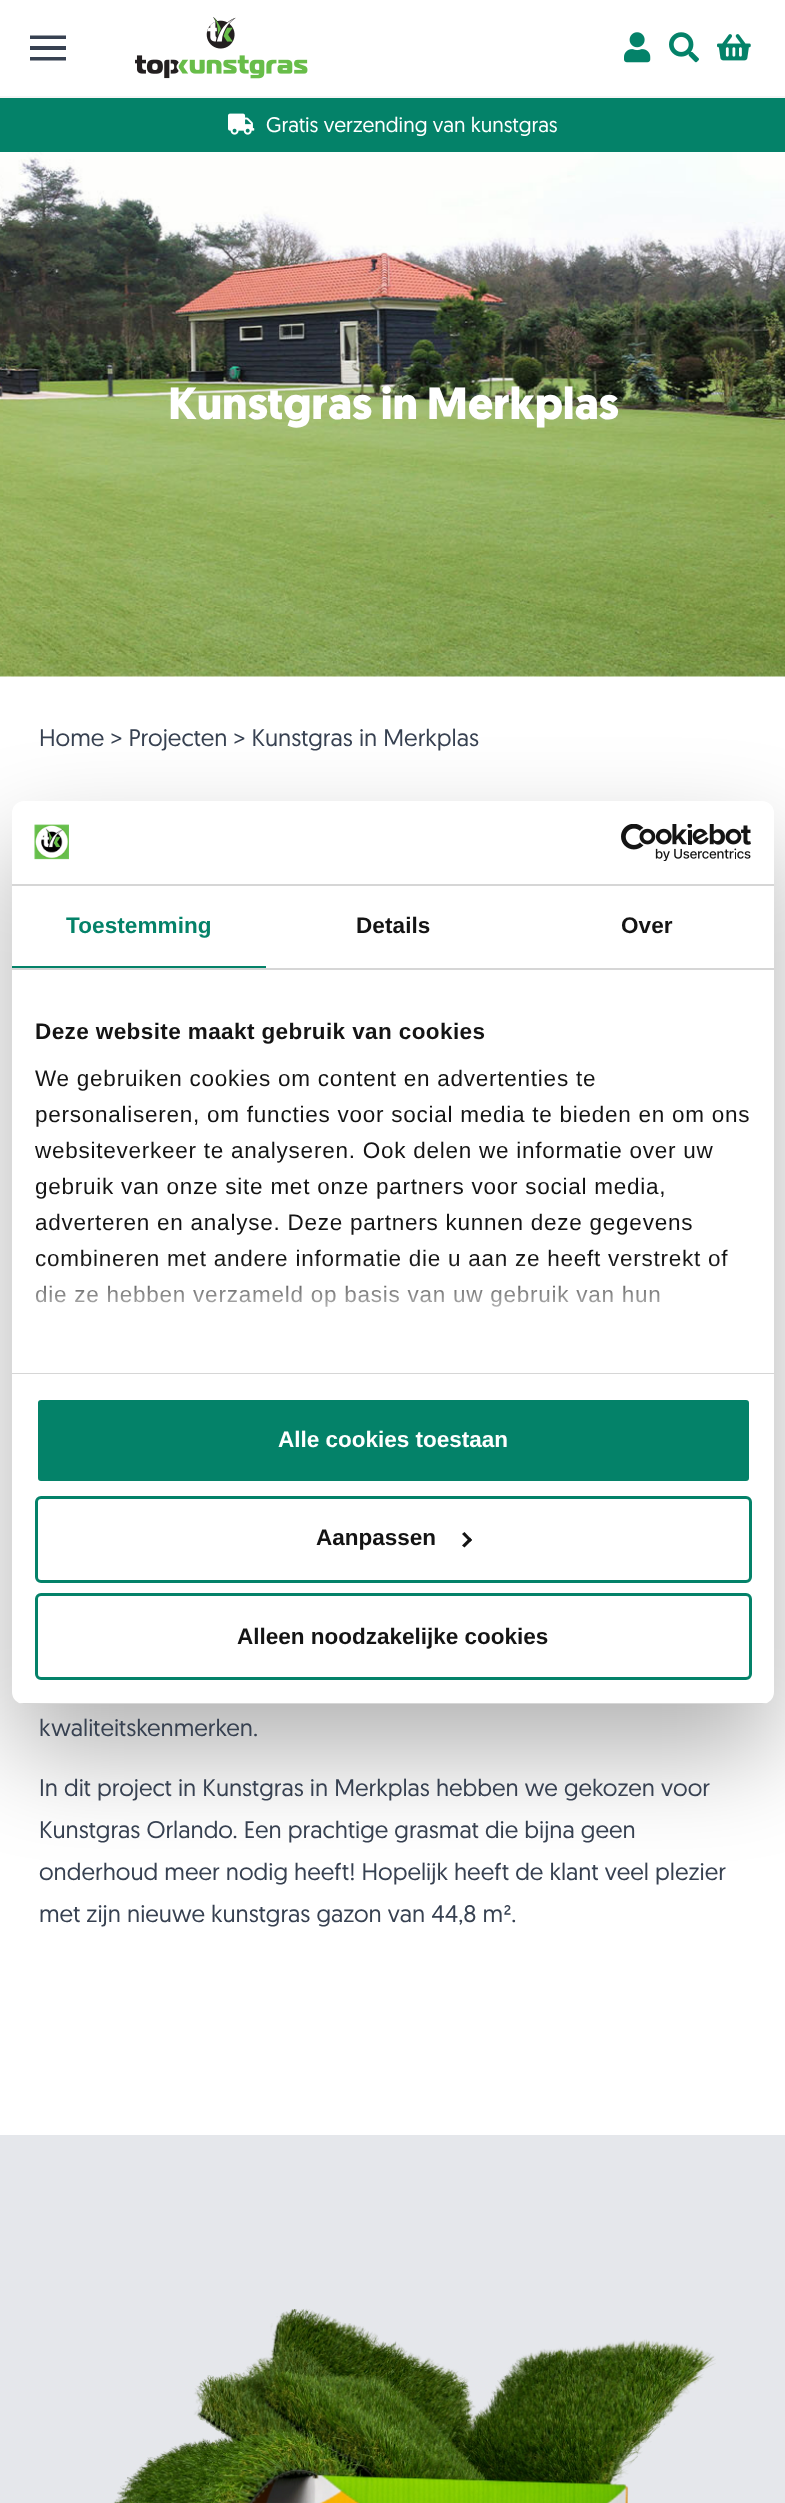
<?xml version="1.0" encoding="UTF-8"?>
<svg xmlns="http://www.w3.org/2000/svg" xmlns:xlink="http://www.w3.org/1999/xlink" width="785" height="2503">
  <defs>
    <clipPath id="clip1"><rect x="12" y="801" width="762" height="903" rx="12" /></clipPath>
    <linearGradient id="g1" gradientUnits="userSpaceOnUse" x1="383" y1="1372" x2="383" y2="1260"><stop offset="0" stop-color="#ffffff" /><stop offset="0.5" stop-color="#ffffff" stop-opacity="0.8" /><stop offset="1" stop-color="#ffffff" stop-opacity="0" /></linearGradient>
  </defs>
  <rect width="100%" height="100%" fill="#ffffff" />
  <rect y="96" width="785" height="2" fill="#f5f5f5" />
  <path d="M 30 35.5 h 36 v 3.5 h -36 z m 0 10.5 h 36 v 4 h -36 z m 0 11 h 36 v 3.5 h -36 z" fill="#374151" />
  <image x="135" y="17" width="173" height="62" xlink:href="image1.png" />
  <image x="624" y="32" width="27" height="31" xlink:href="image2.png" />
  <image x="669" y="32" width="30" height="31" xlink:href="image3.png" />
  <image x="717" y="34" width="34" height="27" xlink:href="image4.png" />
  <rect y="98" width="785" height="54" fill="#048269" />
  <image x="228" y="113" width="27" height="22" xlink:href="image5.png" />
  <image x="0" y="152" width="785" height="525" xlink:href="image6.png" />
  <rect y="2135" width="785" height="368" fill="#e5e7eb" />
  <image x="113" y="2308" width="603" height="195" xlink:href="image7.png" />
  <rect x="12" y="849" width="762" height="903" rx="12" fill="#000000" fill-opacity="0.3" filter="blur(51px)" />
  <rect x="12" y="801" width="762" height="903" rx="12" fill="#ffffff" />
  <rect x="12" y="884" width="762" height="2" fill="#d6d6d6" />
  <image x="34" y="824" width="35" height="36" xlink:href="image8.png" />
  <image x="621" y="824" width="130" height="37" xlink:href="image9.png" />
  <rect x="12" y="968" width="762" height="2" fill="#d6d6d6" />
  <rect x="12" y="966" width="254" height="2" fill="#048269" />
  <rect x="12" y="1373" width="762" height="1" fill="#d6d6d6" />
  <g clip-path="url(#clip1)">
    <rect x="12" y="1703" width="762" height="1" fill="#d6d6d6" />
  </g>
  <rect x="36.5" y="1398.5" width="714" height="84" rx="4.5" fill="#048269" stroke="#ffffff" stroke-width="3" />
  <rect x="36.5" y="1497.5" width="714" height="84" rx="4.5" fill="none" stroke="#048269" stroke-width="3" />
  <path d="M 464.5 1532 l 7.5 8 l -2 2 l -8 -8 z" fill="#141414" />
  <path d="M 470 1537.5 l 2 2.5 l -7.5 7.5 l -2.5 -2 z" fill="#141414" />
  <rect x="36.5" y="1594.5" width="714" height="84" rx="4.5" fill="none" stroke="#048269" stroke-width="3" />
  <text x="266" y="132" style="font-family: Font; font-size: 21px; fill: #ffffff">Gratis verzending van kunstgras</text>
  <text x="168" y="419" style="font-family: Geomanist; font-size: 45px; font-weight: bold; fill: #ffffff">Kunstgras in Merkplas</text>
  <text x="39" y="746" style="font-family: Font; font-size: 24px; fill: #374151">Home &gt; Projecten &gt; Kunstgras in Merkplas</text>
  <text x="39" y="1736" style="font-family: Font; font-size: 24px; fill: #374151">kwaliteitskenmerken.</text>
  <text x="39" y="1796" style="font-family: Font; font-size: 24px; fill: #374151">In dit project in Kunstgras in Merkplas hebben we gekozen voor</text>
  <text x="39" y="1838" style="font-family: Font; font-size: 24px; fill: #374151">Kunstgras Orlando. Een prachtige grasmat die bijna geen</text>
  <text x="39" y="1880" style="font-family: Font; font-size: 24px; fill: #374151">onderhoud meer nodig heeft! Hopelijk heeft de klant veel plezier</text>
  <text x="39" y="1922" style="font-family: Font; font-size: 24px; fill: #374151">met zijn nieuwe kunstgras gazon van 44,8 m².</text>
  <text x="66" y="933" style="font-family: Liberation Sans; font-size: 22.5px; font-weight: bold; letter-spacing: 0.1px; fill: #048269">Toestemming</text>
  <text x="356" y="933" style="font-family: Liberation Sans; font-size: 22.5px; font-weight: bold; letter-spacing: 0.1px; fill: #141414">Details</text>
  <text x="621" y="933" style="font-family: Liberation Sans; font-size: 22.5px; font-weight: bold; letter-spacing: 0.1px; fill: #141414">Over</text>
  <text x="35" y="1039" style="font-family: Liberation Sans; font-size: 22.5px; font-weight: bold; letter-spacing: 0.4px; fill: #141414">Deze website maakt gebruik van cookies</text>
  <text x="35" y="1086" style="font-family: Liberation Sans; font-size: 22.5px; letter-spacing: 0.75px; fill: #141414">We gebruiken cookies om content en advertenties te</text>
  <text x="35" y="1122" style="font-family: Liberation Sans; font-size: 22.5px; letter-spacing: 0.75px; fill: #141414">personaliseren, om functies voor social media te bieden en om ons</text>
  <text x="35" y="1158" style="font-family: Liberation Sans; font-size: 22.5px; letter-spacing: 0.75px; fill: #141414">websiteverkeer te analyseren. Ook delen we informatie over uw</text>
  <text x="35" y="1194" style="font-family: Liberation Sans; font-size: 22.5px; letter-spacing: 0.75px; fill: #141414">gebruik van onze site met onze partners voor social media,</text>
  <text x="35" y="1230" style="font-family: Liberation Sans; font-size: 22.5px; letter-spacing: 0.75px; fill: #141414">adverteren en analyse. Deze partners kunnen deze gegevens</text>
  <text x="35" y="1266" style="font-family: Liberation Sans; font-size: 22.5px; letter-spacing: 0.75px; fill: #141414">combineren met andere informatie die u aan ze heeft verstrekt of</text>
  <text x="35" y="1302" style="font-family: Liberation Sans; font-size: 22.5px; letter-spacing: 0.75px; fill: #141414">die ze hebben verzameld op basis van uw gebruik van hun</text>
  <rect x="35" y="1262" width="690" height="45" fill="url(#g1)" />
  <text x="278" y="1447" style="font-family: Liberation Sans; font-size: 22.5px; font-weight: bold; fill: #ffffff">Alle cookies toestaan</text>
  <text x="316" y="1545" style="font-family: Liberation Sans; font-size: 22.5px; font-weight: bold; fill: #141414">Aanpassen</text>
  <text x="237" y="1644" style="font-family: Liberation Sans; font-size: 22.5px; font-weight: bold; fill: #141414">Alleen noodzakelijke cookies</text>
</svg>
